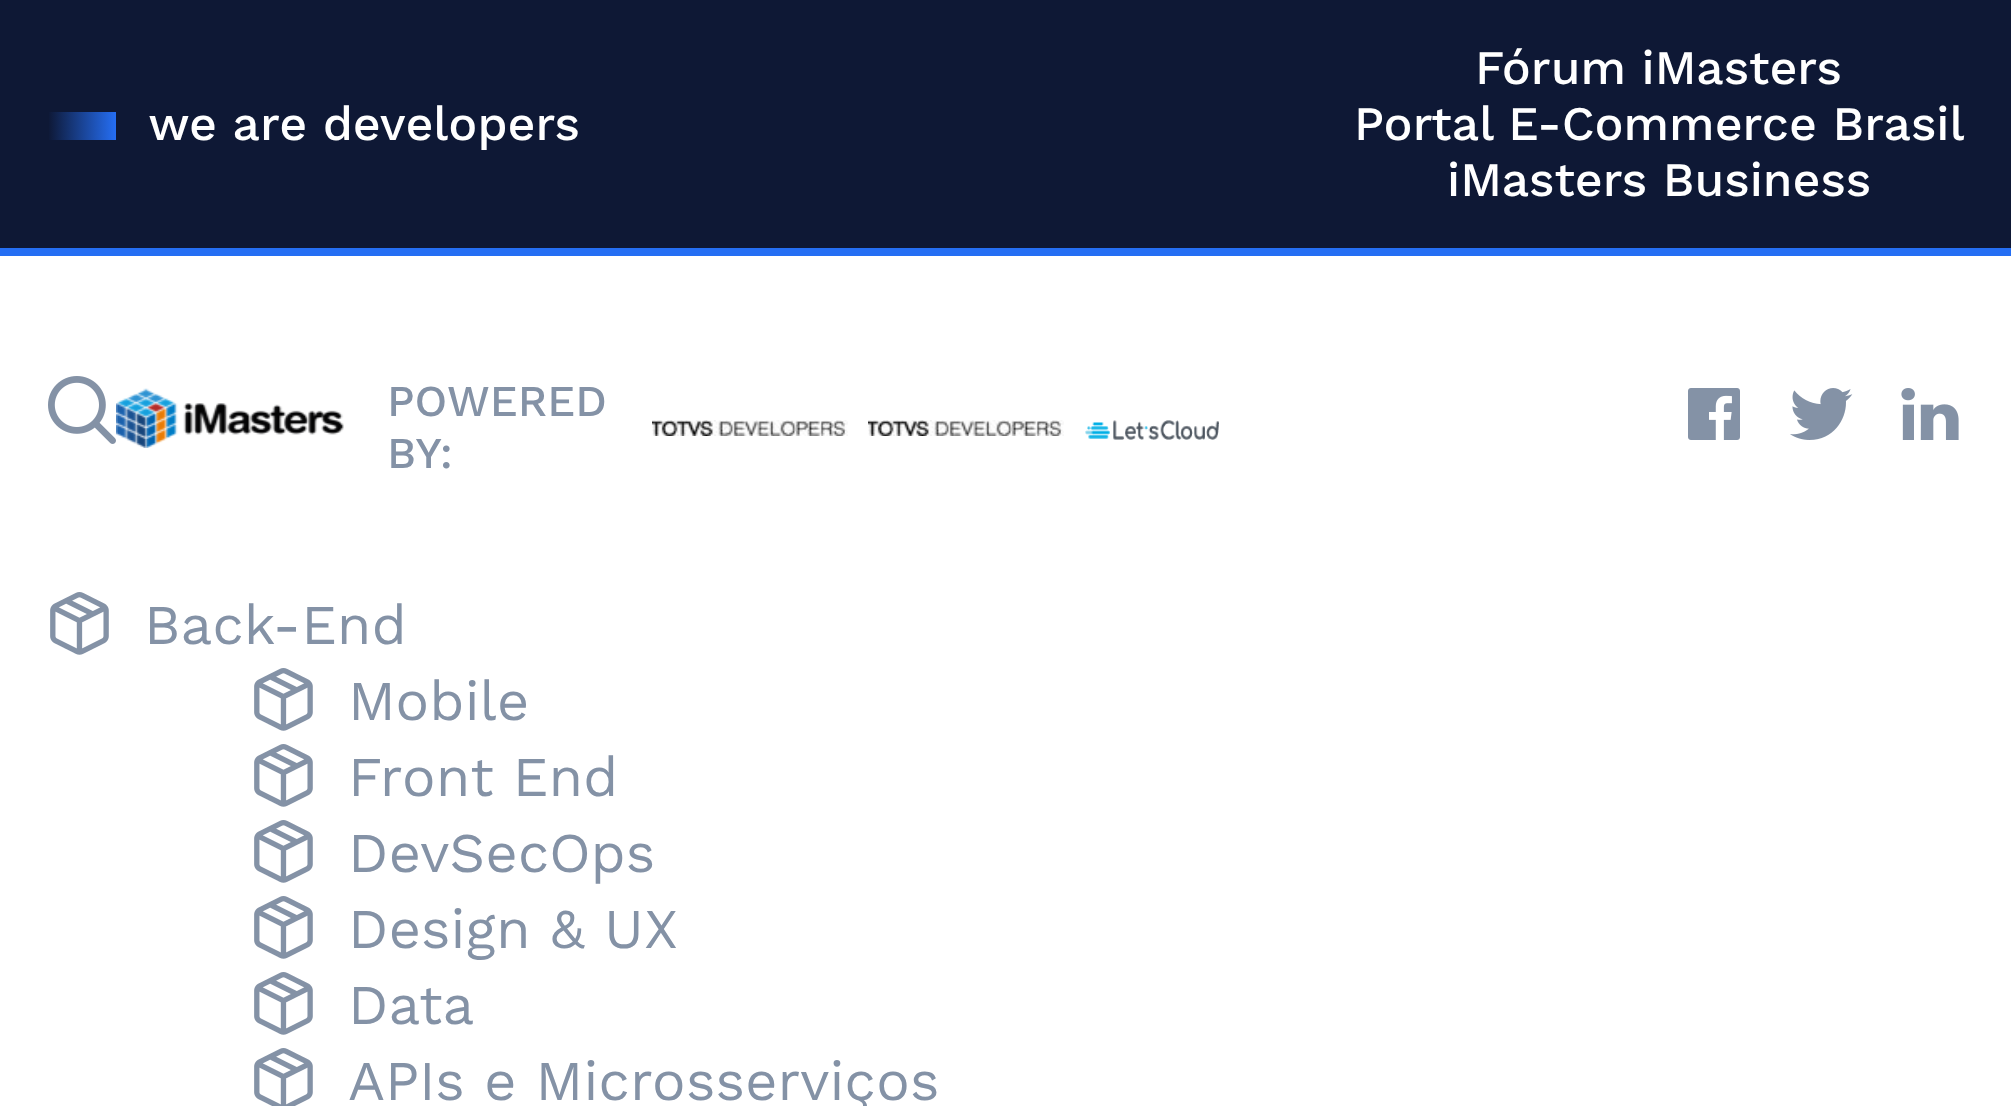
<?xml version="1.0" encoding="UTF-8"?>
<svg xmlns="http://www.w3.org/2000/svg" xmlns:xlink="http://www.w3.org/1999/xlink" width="2011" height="1106">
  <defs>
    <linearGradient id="g1" gradientUnits="userSpaceOnUse" x1="116" y1="126" x2="48" y2="126"><stop offset="0" stop-color="#256ef3" /><stop offset="1" stop-color="#0e1835" /></linearGradient>
  </defs>
  <rect width="100%" height="100%" fill="#ffffff" />
  <rect width="2011" height="248" fill="#0e1835" />
  <rect y="248" width="2011" height="8" fill="#256ef3" />
  <rect x="49" y="112" width="67" height="28" fill="url(#g1)" />
  <image x="48" y="376" width="68" height="68" xlink:href="image1.png" />
  <image x="116" y="388" width="228" height="60" xlink:href="image2.png" />
  <image x="652" y="420" width="196" height="16" xlink:href="image3.png" />
  <image x="868" y="420" width="196" height="16" xlink:href="image3.png" />
  <image x="1085" y="420" width="134" height="20" xlink:href="image4.png" />
  <image x="1688" y="388" width="52" height="52" xlink:href="image5.png" />
  <image x="1790" y="388" width="63" height="52" xlink:href="image6.png" />
  <image x="1901" y="388" width="58" height="52" xlink:href="image7.png" />
  <image x="50" y="592" width="59" height="63" xlink:href="image8.png" />
  <image x="254" y="668" width="59" height="63" xlink:href="image8.png" />
  <image x="254" y="744" width="59" height="63" xlink:href="image8.png" />
  <image x="254" y="820" width="59" height="63" xlink:href="image8.png" />
  <image x="254" y="896" width="59" height="63" xlink:href="image8.png" />
  <image x="254" y="972" width="59" height="63" xlink:href="image8.png" />
  <image x="254" y="1048" width="59" height="58" xlink:href="image9.png" />
  <text x="148" y="140" style="font-family: Work Sans; font-size: 48px; font-weight: 500; fill: #ffffff">we are developers</text>
  <text x="1475" y="84" style="font-family: Work Sans; font-size: 48px; font-weight: 500; fill: #ffffff">Fórum iMasters</text>
  <text x="1354" y="140" style="font-family: Work Sans; font-size: 48px; font-weight: 500; fill: #ffffff">Portal E-Commerce Brasil</text>
  <text x="1447" y="196" style="font-family: Work Sans; font-size: 48px; font-weight: 500; fill: #ffffff">iMasters Business</text>
  <text x="387" y="416" style="font-family: Work Sans; font-size: 44px; font-weight: 500; fill: #8492a6">POWERED</text>
  <text x="387" y="468" style="font-family: Work Sans; font-size: 44px; font-weight: 500; fill: #8492a6">BY:</text>
  <text x="144" y="644" style="font-family: Work Sans; font-size: 56px; fill: #8492a6">Back-End</text>
  <text x="348" y="720" style="font-family: Work Sans; font-size: 56px; fill: #8492a6">Mobile</text>
  <text x="348" y="796" style="font-family: Work Sans; font-size: 56px; fill: #8492a6">Front End</text>
  <text x="348" y="872" style="font-family: Work Sans; font-size: 56px; fill: #8492a6">DevSecOps</text>
  <text x="348" y="948" style="font-family: Work Sans; font-size: 56px; fill: #8492a6">Design &amp; UX</text>
  <text x="348" y="1024" style="font-family: Work Sans; font-size: 56px; fill: #8492a6">Data</text>
  <text x="348" y="1100" style="font-family: Work Sans; font-size: 56px; fill: #8492a6">APIs e Microsserviços</text>
</svg>
